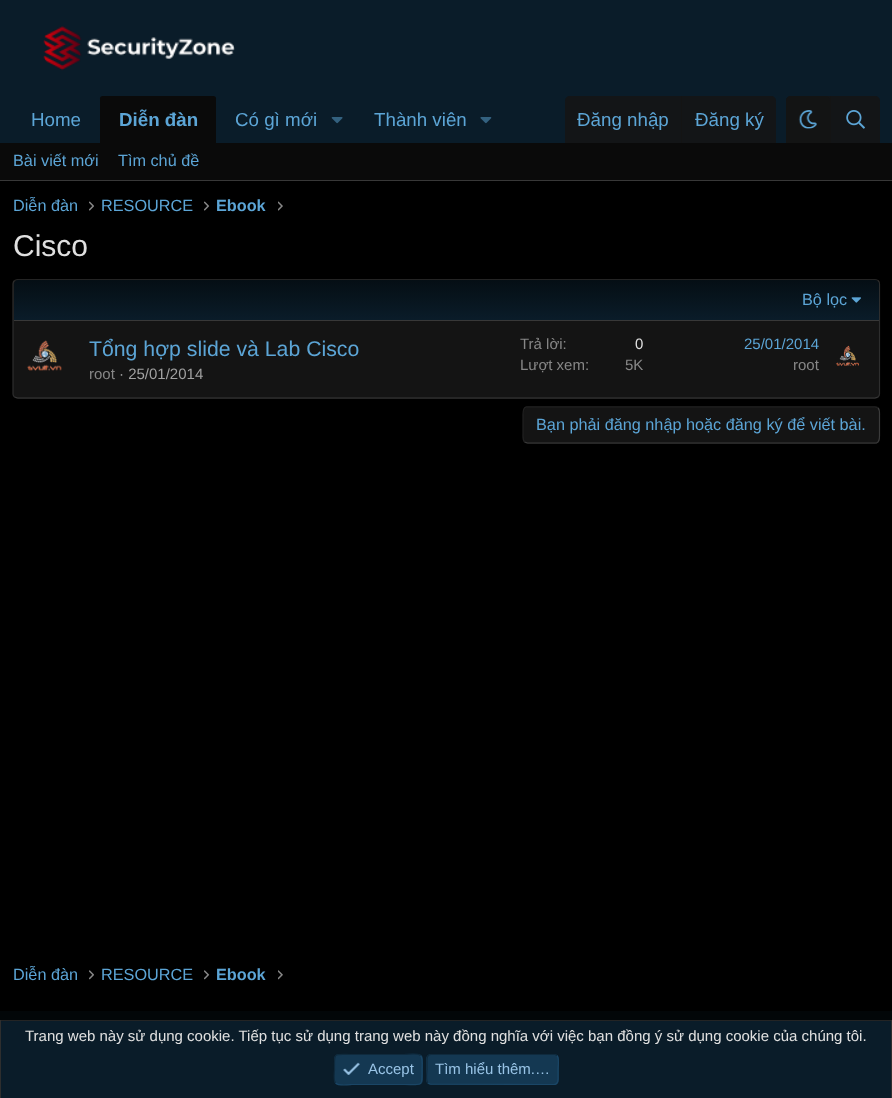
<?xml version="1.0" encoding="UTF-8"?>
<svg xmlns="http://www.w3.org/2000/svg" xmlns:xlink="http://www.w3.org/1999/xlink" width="892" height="1098">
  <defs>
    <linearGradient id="g1" gradientUnits="userSpaceOnUse" x1="446" y1="320" x2="446" y2="280"><stop offset="0" stop-color="#0a1c29" /><stop offset="1" stop-color="#050e14" /></linearGradient>
  </defs>
  <rect width="100%" height="100%" fill="#000000" />
  <rect width="892" height="143" fill="#0a1c29" />
  <image x="43" y="26" width="192" height="45" xlink:href="image1.png" />
  <path d="M 102.5 96 h 111 c 1.5 0 2.5 1 2.5 2.5 v 44.5 h -116 v -44.5 c 0 -1.5 1 -2.5 2.5 -2.5 z" fill="#0a0a0a" />
  <image x="331" y="117" width="12" height="7" xlink:href="image2.png" />
  <image x="480" y="117" width="12" height="7" xlink:href="image3.png" />
  <path d="M 570 96 h 201 c 3 0 5 2 5 5 v 42 h -211 v -42 c 0 -3 2 -5 5 -5 z" fill="#131517" />
  <rect x="681" y="96" width="1" height="47" fill="#141414" />
  <path d="M 791 96 h 84 c 3 0 5 2 5 5 v 42 h -94 v -42 c 0 -3 2 -5 5 -5 z" fill="#131517" />
  <path d="M 791 96 h 34 c 3 0 5 2 5 5 v 42 h -44 v -42 c 0 -3 2 -5 5 -5 z" fill="#141414" fill-opacity="0.85" />
  <image x="798" y="110" width="19" height="19" xlink:href="image4.png" />
  <rect x="830" y="96" width="1" height="47" fill="#141414" />
  <image x="846" y="110" width="19" height="19" xlink:href="image5.png" />
  <rect y="143" width="892" height="37" fill="#0a0a0a" />
  <rect y="180" width="892" height="1" fill="#383838" />
  <image x="89" y="201" width="5" height="10" xlink:href="image6.png" />
  <image x="204" y="201" width="6" height="10" xlink:href="image7.png" />
  <image x="278" y="201" width="5" height="10" xlink:href="image8.png" />
  <rect x="13" y="279" width="867" height="120" rx="5" fill="#141414" />
  <path d="M 14.5 280.5 l 3 -1 h 857.5 l 3 1" fill="none" stroke="#242424" stroke-width="1.2" />
  <path d="M 878 280.5 c 1 1 1.5 2 1.5 3.5 v 110 c 0 1 -0.5 2 -1.5 3" fill="none" stroke="#2e2e2e" stroke-width="1.2" />
  <path d="M 878 397 l -3 1 h -857.5 l -3 -1" fill="none" stroke="#383838" stroke-width="1.2" />
  <path d="M 14.5 397 c -1 -1 -1.5 -2 -1.5 -3 v -110 c 0 -1.5 0.5 -2.5 1.5 -3.5" fill="none" stroke="#2e2e2e" stroke-width="1.2" />
  <path d="M 18 280 h 857 c 2 0 4 2 4 4 v 36 h -865 v -36 c 0 -2 2 -4 4 -4 z" fill="url(#g1)" />
  <rect x="14" y="320" width="865" height="1" fill="#383838" />
  <image x="851" y="297" width="10" height="6" xlink:href="image9.png" />
  <image x="27" y="340" width="35" height="31" xlink:href="image10.png" />
  <image x="836" y="345" width="23" height="21" xlink:href="image11.png" />
  <rect x="523" y="406" width="357" height="38" rx="5" fill="#141414" />
  <path d="M 878 408 c 2 2 1.5 5.5 1.5 8 v 18 c 0 3.5 0.5 8 -3 9 h -349 l -3 -1" fill="none" stroke="#3b3b3b" stroke-width="1.2" />
  <path d="M 524.5 442 c -2 -2 -1.5 -5.5 -1.5 -8 v -18 c 0 -3.5 -0.5 -8 3 -9 h 349 l 3 1" fill="none" stroke="#212121" stroke-width="1.2" />
  <image x="89" y="970" width="5" height="10" xlink:href="image12.png" />
  <image x="204" y="970" width="6" height="10" xlink:href="image13.png" />
  <image x="278" y="970" width="5" height="10" xlink:href="image14.png" />
  <rect y="1011" width="892" height="9" fill="#020608" />
  <rect x="1" y="1021" width="890" height="77" fill="#0a1c29" />
  <rect y="1020" width="892" height="1" fill="#242424" />
  <rect x="891" y="1020" width="1" height="78" fill="#2e2e2e" />
  <rect y="1020" width="1" height="78" fill="#2e2e2e" />
  <rect x="334" y="1054" width="89" height="31" rx="5" fill="#143852" />
  <path d="M 420.5 1055.5 c 2.5 3 1.5 10.5 1.5 14 c 0 17.5 1.5 15 -17.5 15 h -52.5 c -1.5 0 -13 2 -16.5 -1.5" fill="none" stroke="#1a4666" stroke-width="1.2" />
  <path d="M 335.5 1083 c -2.5 -2.5 -1 -10.5 -1 -13.5 c 0 -18 -1.5 -15 17.5 -15 h 52.5 c 1 0 13 -2 16 1" fill="none" stroke="#0f2a3d" stroke-width="1.2" />
  <image x="343" y="1062" width="17" height="13" xlink:href="image15.png" />
  <rect x="426" y="1054" width="133" height="31" rx="5" fill="#143852" />
  <path d="M 557 1055.5 c 2.5 3 1 10.5 1 14 v 7 c 0 3 0.5 8 -4 8 l -124 -0.5 l -2 -1" fill="none" stroke="#1a4666" stroke-width="1.2" />
  <path d="M 428 1083 c -2.5 -2.5 -1 -10.5 -1 -13.5 v -7 c 0 -3.5 -0.5 -8 4 -8 h 124 l 2 1" fill="none" stroke="#0f2a3d" stroke-width="1.2" />
  <text x="31" y="126" style="font-family: Liberation Sans; font-size: 18.75px; fill: #5ca5d6">Home</text>
  <text x="119" y="126" style="font-family: Liberation Sans; font-size: 18.75px; font-weight: bold; fill: #5ca5d6">Diễn đàn</text>
  <text x="235" y="126" style="font-family: Liberation Sans; font-size: 18.75px; fill: #5ca5d6">Có gì mới</text>
  <text x="374" y="126" style="font-family: Liberation Sans; font-size: 18.75px; fill: #5ca5d6">Thành viên</text>
  <text x="577" y="126" style="font-family: Liberation Sans; font-size: 18.75px; fill: #5ca5d6">Đăng nhập</text>
  <text x="695" y="126" style="font-family: Liberation Sans; font-size: 18.75px; fill: #5ca5d6">Đăng ký</text>
  <text x="13" y="166" style="font-family: Liberation Sans; font-size: 16.25px; fill: #5ca5d6">Bài viết mới</text>
  <text x="118" y="166" style="font-family: Liberation Sans; font-size: 16.25px; fill: #5ca5d6">Tìm chủ đề</text>
  <text x="13" y="211" style="font-family: Liberation Sans; font-size: 16.25px; fill: #5ca5d6">Diễn đàn</text>
  <text x="101" y="211" style="font-family: Liberation Sans; font-size: 16.25px; fill: #5ca5d6">RESOURCE</text>
  <text x="216" y="211" style="font-family: Liberation Sans; font-size: 16.25px; font-weight: bold; fill: #5ca5d6">Ebook</text>
  <text x="13" y="256" style="font-family: Liberation Sans; font-size: 30px; fill: #e0e0e0">Cisco</text>
  <text x="802" y="305" style="font-family: Liberation Sans; font-size: 16.25px; fill: #5ca5d6">Bộ lọc</text>
  <text x="89" y="356" style="font-family: Liberation Sans; font-size: 21.25px; fill: #5ca5d6">Tổng hợp slide và Lab Cisco</text>
  <text x="89" y="379" style="font-family: Liberation Sans; font-size: 15px; fill: #878787">root</text>
  <text x="119" y="379" style="font-family: Liberation Sans; font-size: 15px; fill: #a1a1a1">· 25/01/2014</text>
  <text x="520" y="349" style="font-family: Liberation Sans; font-size: 15px; fill: #878787">Trả lời:</text>
  <text x="635" y="349" style="font-family: Liberation Sans; font-size: 15px; fill: #e0e0e0">0</text>
  <text x="520" y="370" style="font-family: Liberation Sans; font-size: 15px; fill: #878787">Lượt xem:</text>
  <text x="625" y="370" style="font-family: Liberation Sans; font-size: 15px; fill: #878787">5K</text>
  <text x="744" y="349" style="font-family: Liberation Sans; font-size: 15px; fill: #5ca5d6">25/01/2014</text>
  <text x="793" y="370" style="font-family: Liberation Sans; font-size: 15px; fill: #878787">root</text>
  <text x="536" y="430" style="font-family: Liberation Sans; font-size: 16.25px; fill: #5ca5d6">Bạn phải đăng nhập hoặc đăng ký để viết bài.</text>
  <text x="13" y="980" style="font-family: Liberation Sans; font-size: 16.25px; fill: #5ca5d6">Diễn đàn</text>
  <text x="101" y="980" style="font-family: Liberation Sans; font-size: 16.25px; fill: #5ca5d6">RESOURCE</text>
  <text x="216" y="980" style="font-family: Liberation Sans; font-size: 16.25px; font-weight: bold; fill: #5ca5d6">Ebook</text>
  <text x="25" y="1041" style="font-family: Liberation Sans; font-size: 15px; fill: #e0e0e0">Trang web này sử dụng cookie. Tiếp tục sử dụng trang web này đồng nghĩa với việc bạn đồng ý sử dụng cookie của chúng tôi.</text>
  <text x="368" y="1074" style="font-family: Liberation Sans; font-size: 15px; fill: #99c4e6">Accept</text>
  <text x="435" y="1074" style="font-family: Liberation Sans; font-size: 15px; fill: #99c4e6">Tìm hiểu thêm.…</text>
</svg>
